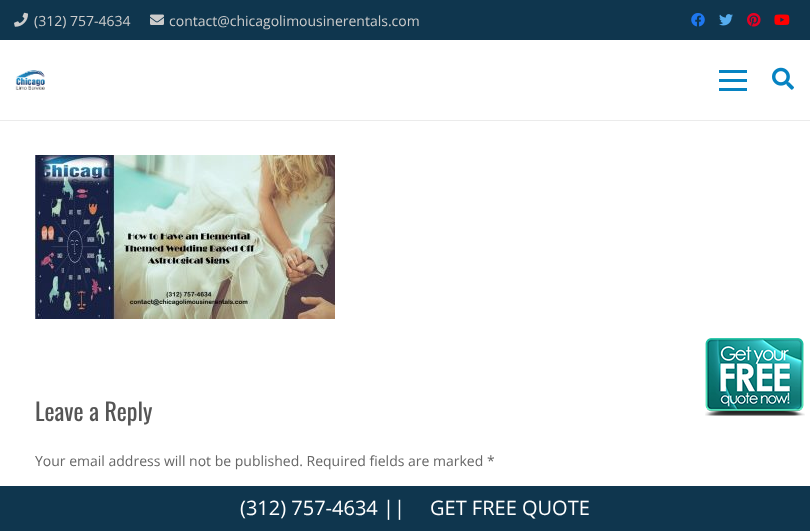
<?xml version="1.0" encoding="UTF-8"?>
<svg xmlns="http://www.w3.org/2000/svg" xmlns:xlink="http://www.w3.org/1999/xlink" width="810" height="531">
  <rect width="100%" height="100%" fill="#ffffff" />
  <rect width="810" height="40" fill="#0f364e" />
  <image x="14" y="12" width="14" height="15" xlink:href="image1.png" />
  <image x="150" y="14" width="14" height="11" xlink:href="image2.png" />
  <image x="691" y="13" width="14" height="14" xlink:href="image3.png" />
  <image x="719" y="14" width="14" height="12" xlink:href="image4.png" />
  <image x="747" y="13" width="14" height="14" xlink:href="image5.png" />
  <image x="774" y="14" width="16" height="11" xlink:href="image6.png" />
  <rect y="120" width="810" height="1" fill="#ebebeb" />
  <image x="15" y="70" width="30" height="20" xlink:href="image7.png" />
  <rect x="719" y="79" width="28" height="3" fill="#0683c2" />
  <rect x="719" y="70" width="28" height="3" fill="#0683c2" />
  <rect x="719" y="88" width="28" height="3" fill="#0683c2" />
  <image x="772" y="67" width="22" height="23" xlink:href="image8.png" />
  <image x="35" y="155" width="300" height="164" xlink:href="image9.png" />
  <image x="705" y="338" width="100" height="78" xlink:href="image10.png" />
  <rect y="486" width="810" height="45" fill="#0f364e" />
  <text x="34" y="26" style="font-family: Open Sans; font-size: 14px; fill: #cccccc">(312) 757-4634</text>
  <text x="169" y="26" style="font-family: Open Sans; font-size: 14px; fill: #cccccc">contact@chicagolimousinerentals.com</text>
  <text x="35" y="421" style="font-family: Oswald; font-size: 24px; fill: #555555">Leave a Reply</text>
  <text x="35" y="466" style="font-family: Open Sans; font-size: 14px; fill: #666666">Your email address will not be published. Required fields are marked *</text>
  <text x="240" y="515" style="font-family: Open Sans; font-size: 20px; fill: #ffffff">(312) 757-4634 ||</text>
  <text x="430" y="515" style="font-family: Open Sans; font-size: 20px; fill: #ffffff">GET FREE QUOTE</text>
</svg>
